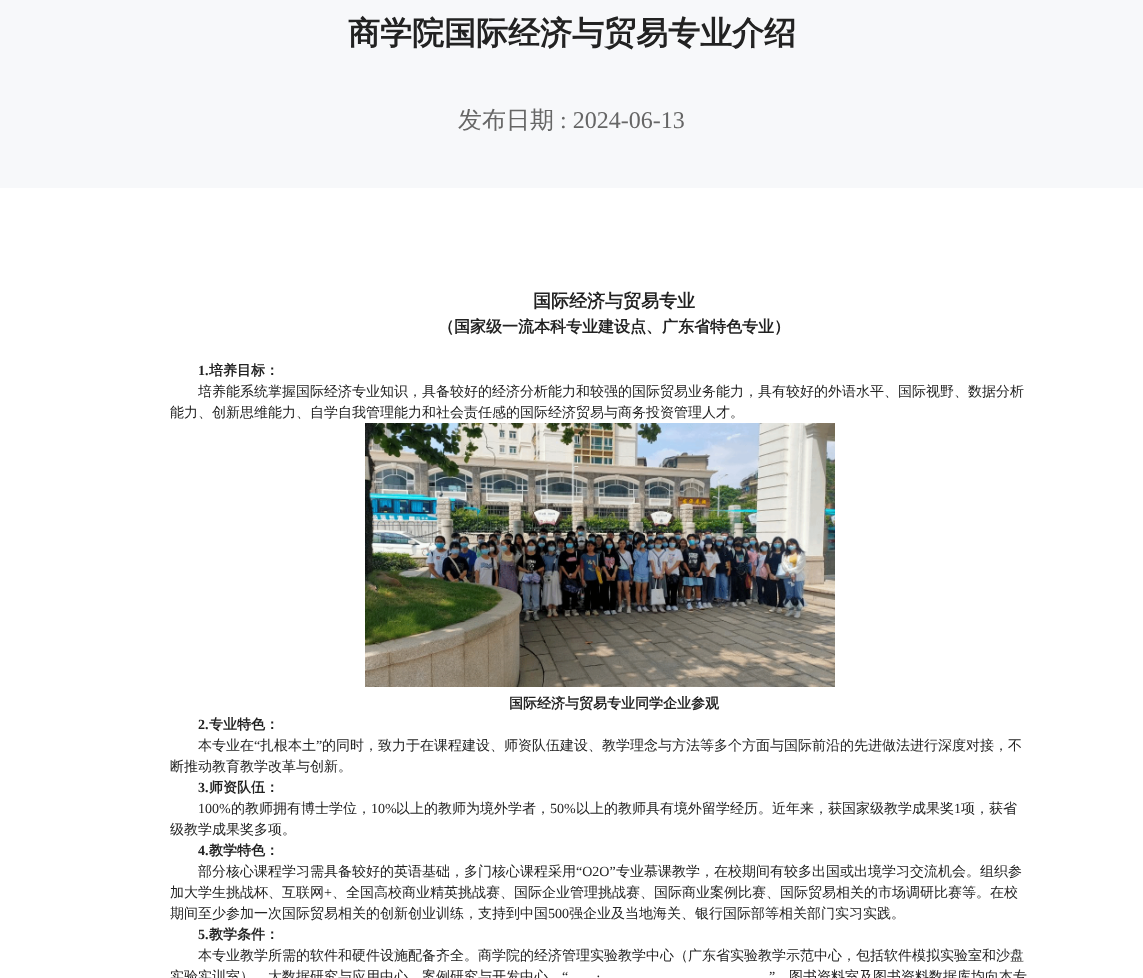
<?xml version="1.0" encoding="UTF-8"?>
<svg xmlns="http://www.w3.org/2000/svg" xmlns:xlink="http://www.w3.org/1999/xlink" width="1143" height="978">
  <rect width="100%" height="100%" fill="#ffffff" />
  <rect width="1143" height="188" fill="#f7f8fa" />
  <image x="365" y="423" width="470" height="264" xlink:href="image1.png" />
  <text x="348" y="44" style="font-family: WenQuanYi Zen Hei; font-size: 32px; font-weight: bold; fill: #222222">商学院国际经济与贸易专业介绍</text>
  <text x="458" y="128" style="font-family: WenQuanYi Zen Hei; font-size: 24px; font-weight: 500; fill: #666666">发布日期</text>
  <text x="560" y="128" style="font-family: Liberation Serif; font-size: 24px; fill: #666666">: 2024-06-13</text>
  <text x="533" y="307" style="font-family: WenQuanYi Zen Hei; font-size: 18px; font-weight: bold; fill: #222222">国际经济与贸易专业</text>
  <text x="438" y="332" style="font-family: WenQuanYi Zen Hei; font-size: 16px; font-weight: bold; fill: #222222">（国家级一流本科专业建设点、广东省特色专业）</text>
  <text x="198" y="375" style="font-family: Liberation Serif; font-size: 14px; font-weight: bold; fill: #222222">1.</text>
  <text x="209" y="375" style="font-family: WenQuanYi Zen Hei; font-size: 14px; font-weight: bold; fill: #222222">培养目标：</text>
  <text x="198" y="396" style="font-family: WenQuanYi Zen Hei; font-size: 14px; font-weight: 500; fill: #222222">培养能系统掌握国际经济专业知识，具备较好的经济分析能力和较强的国际贸易业务能力，具有较好的外语水平、国际视野、数据分析</text>
  <text x="170" y="417" style="font-family: WenQuanYi Zen Hei; font-size: 14px; font-weight: 500; fill: #222222">能力、创新思维能力、自学自我管理能力和社会责任感的国际经济贸易与商务投资管理人才。</text>
  <text x="509" y="708" style="font-family: WenQuanYi Zen Hei; font-size: 14px; font-weight: bold; fill: #222222">国际经济与贸易专业同学企业参观</text>
  <text x="198" y="729" style="font-family: Liberation Serif; font-size: 14px; font-weight: bold; fill: #222222">2.</text>
  <text x="209" y="729" style="font-family: WenQuanYi Zen Hei; font-size: 14px; font-weight: bold; fill: #222222">专业特色：</text>
  <text x="198" y="750" style="font-family: WenQuanYi Zen Hei; font-size: 14px; font-weight: 500; fill: #222222">本专业在</text>
  <text x="254" y="750" style="font-family: Liberation Serif; font-size: 14px; fill: #222222">“</text>
  <text x="260" y="750" style="font-family: WenQuanYi Zen Hei; font-size: 14px; font-weight: 500; fill: #222222">扎根本土</text>
  <text x="316" y="750" style="font-family: Liberation Serif; font-size: 14px; fill: #222222">”</text>
  <text x="322" y="750" style="font-family: WenQuanYi Zen Hei; font-size: 14px; font-weight: 500; fill: #222222">的同时，致力于在课程建设、师资队伍建设、教学理念与方法等多个方面与国际前沿的先进做法进行深度对接，不</text>
  <text x="170" y="771" style="font-family: WenQuanYi Zen Hei; font-size: 14px; font-weight: 500; fill: #222222">断推动教育教学改革与创新。</text>
  <text x="198" y="792" style="font-family: Liberation Serif; font-size: 14px; font-weight: bold; fill: #222222">3.</text>
  <text x="209" y="792" style="font-family: WenQuanYi Zen Hei; font-size: 14px; font-weight: bold; fill: #222222">师资队伍：</text>
  <text x="198" y="813" style="font-family: Liberation Serif; font-size: 14px; fill: #222222">100%</text>
  <text x="231" y="813" style="font-family: WenQuanYi Zen Hei; font-size: 14px; font-weight: 500; fill: #222222">的教师拥有博士学位，</text>
  <text x="371" y="813" style="font-family: Liberation Serif; font-size: 14px; fill: #222222">10%</text>
  <text x="396" y="813" style="font-family: WenQuanYi Zen Hei; font-size: 14px; font-weight: 500; fill: #222222">以上的教师为境外学者，</text>
  <text x="550" y="813" style="font-family: Liberation Serif; font-size: 14px; fill: #222222">50%</text>
  <text x="576" y="813" style="font-family: WenQuanYi Zen Hei; font-size: 14px; font-weight: 500; fill: #222222">以上的教师具有境外留学经历。近年来，获国家级教学成果奖</text>
  <text x="954" y="813" style="font-family: Liberation Serif; font-size: 14px; fill: #222222">1</text>
  <text x="961" y="813" style="font-family: WenQuanYi Zen Hei; font-size: 14px; font-weight: 500; fill: #222222">项，获省</text>
  <text x="170" y="834" style="font-family: WenQuanYi Zen Hei; font-size: 14px; font-weight: 500; fill: #222222">级教学成果奖多项。</text>
  <text x="198" y="855" style="font-family: Liberation Serif; font-size: 14px; font-weight: bold; fill: #222222">4.</text>
  <text x="209" y="855" style="font-family: WenQuanYi Zen Hei; font-size: 14px; font-weight: bold; fill: #222222">教学特色：</text>
  <text x="198" y="876" style="font-family: WenQuanYi Zen Hei; font-size: 14px; font-weight: 500; fill: #222222">部分核心课程学习需具备较好的英语基础，多门核心课程采用</text>
  <text x="576" y="876" style="font-family: Liberation Serif; font-size: 14px; fill: #222222">“O2O”</text>
  <text x="616" y="876" style="font-family: WenQuanYi Zen Hei; font-size: 14px; font-weight: 500; fill: #222222">专业慕课教学，在校期间有较多出国或出境学习交流机会。组织参</text>
  <text x="170" y="897" style="font-family: WenQuanYi Zen Hei; font-size: 14px; font-weight: 500; fill: #222222">加大学生挑战杯、互联网</text>
  <text x="324" y="897" style="font-family: Liberation Serif; font-size: 14px; fill: #222222">+</text>
  <text x="332" y="897" style="font-family: WenQuanYi Zen Hei; font-size: 14px; font-weight: 500; fill: #222222">、全国高校商业精英挑战赛、国际企业管理挑战赛、国际商业案例比赛、国际贸易相关的市场调研比赛等。在校</text>
  <text x="170" y="918" style="font-family: WenQuanYi Zen Hei; font-size: 14px; font-weight: 500; fill: #222222">期间至少参加一次国际贸易相关的创新创业训练，支持到中国</text>
  <text x="548" y="918" style="font-family: Liberation Serif; font-size: 14px; fill: #222222">500</text>
  <text x="569" y="918" style="font-family: WenQuanYi Zen Hei; font-size: 14px; font-weight: 500; fill: #222222">强企业及当地海关、银行国际部等相关部门实习实践。</text>
  <text x="198" y="939" style="font-family: Liberation Serif; font-size: 14px; font-weight: bold; fill: #222222">5.</text>
  <text x="209" y="939" style="font-family: WenQuanYi Zen Hei; font-size: 14px; font-weight: bold; fill: #222222">教学条件：</text>
  <text x="198" y="960" style="font-family: WenQuanYi Zen Hei; font-size: 14px; font-weight: 500; fill: #222222">本专业教学所需的软件和硬件设施配备齐全。商学院的经济管理实验教学中心（广东省实验教学示范中心，包括软件模拟实验室和沙盘</text>
  <text x="170" y="981" style="font-family: WenQuanYi Zen Hei; font-size: 14px; font-weight: 500; fill: #222222">实验实训室）、大数据研究与应用中心、案例研究与开发中心</text>
  <text x="562" y="981" style="font-family: Liberation Serif; font-size: 14px; fill: #222222">“</text>
  <text x="769" y="981" style="font-family: Liberation Serif; font-size: 14px; fill: #222222">”</text>
  <text x="789" y="981" style="font-family: WenQuanYi Zen Hei; font-size: 14px; font-weight: 500; fill: #222222">图书资料室及图书资料数据库均向本专</text>
  <text x="596" y="981" style="font-family: Liberation Serif; font-size: 14px; fill: #222222">·</text>
</svg>
